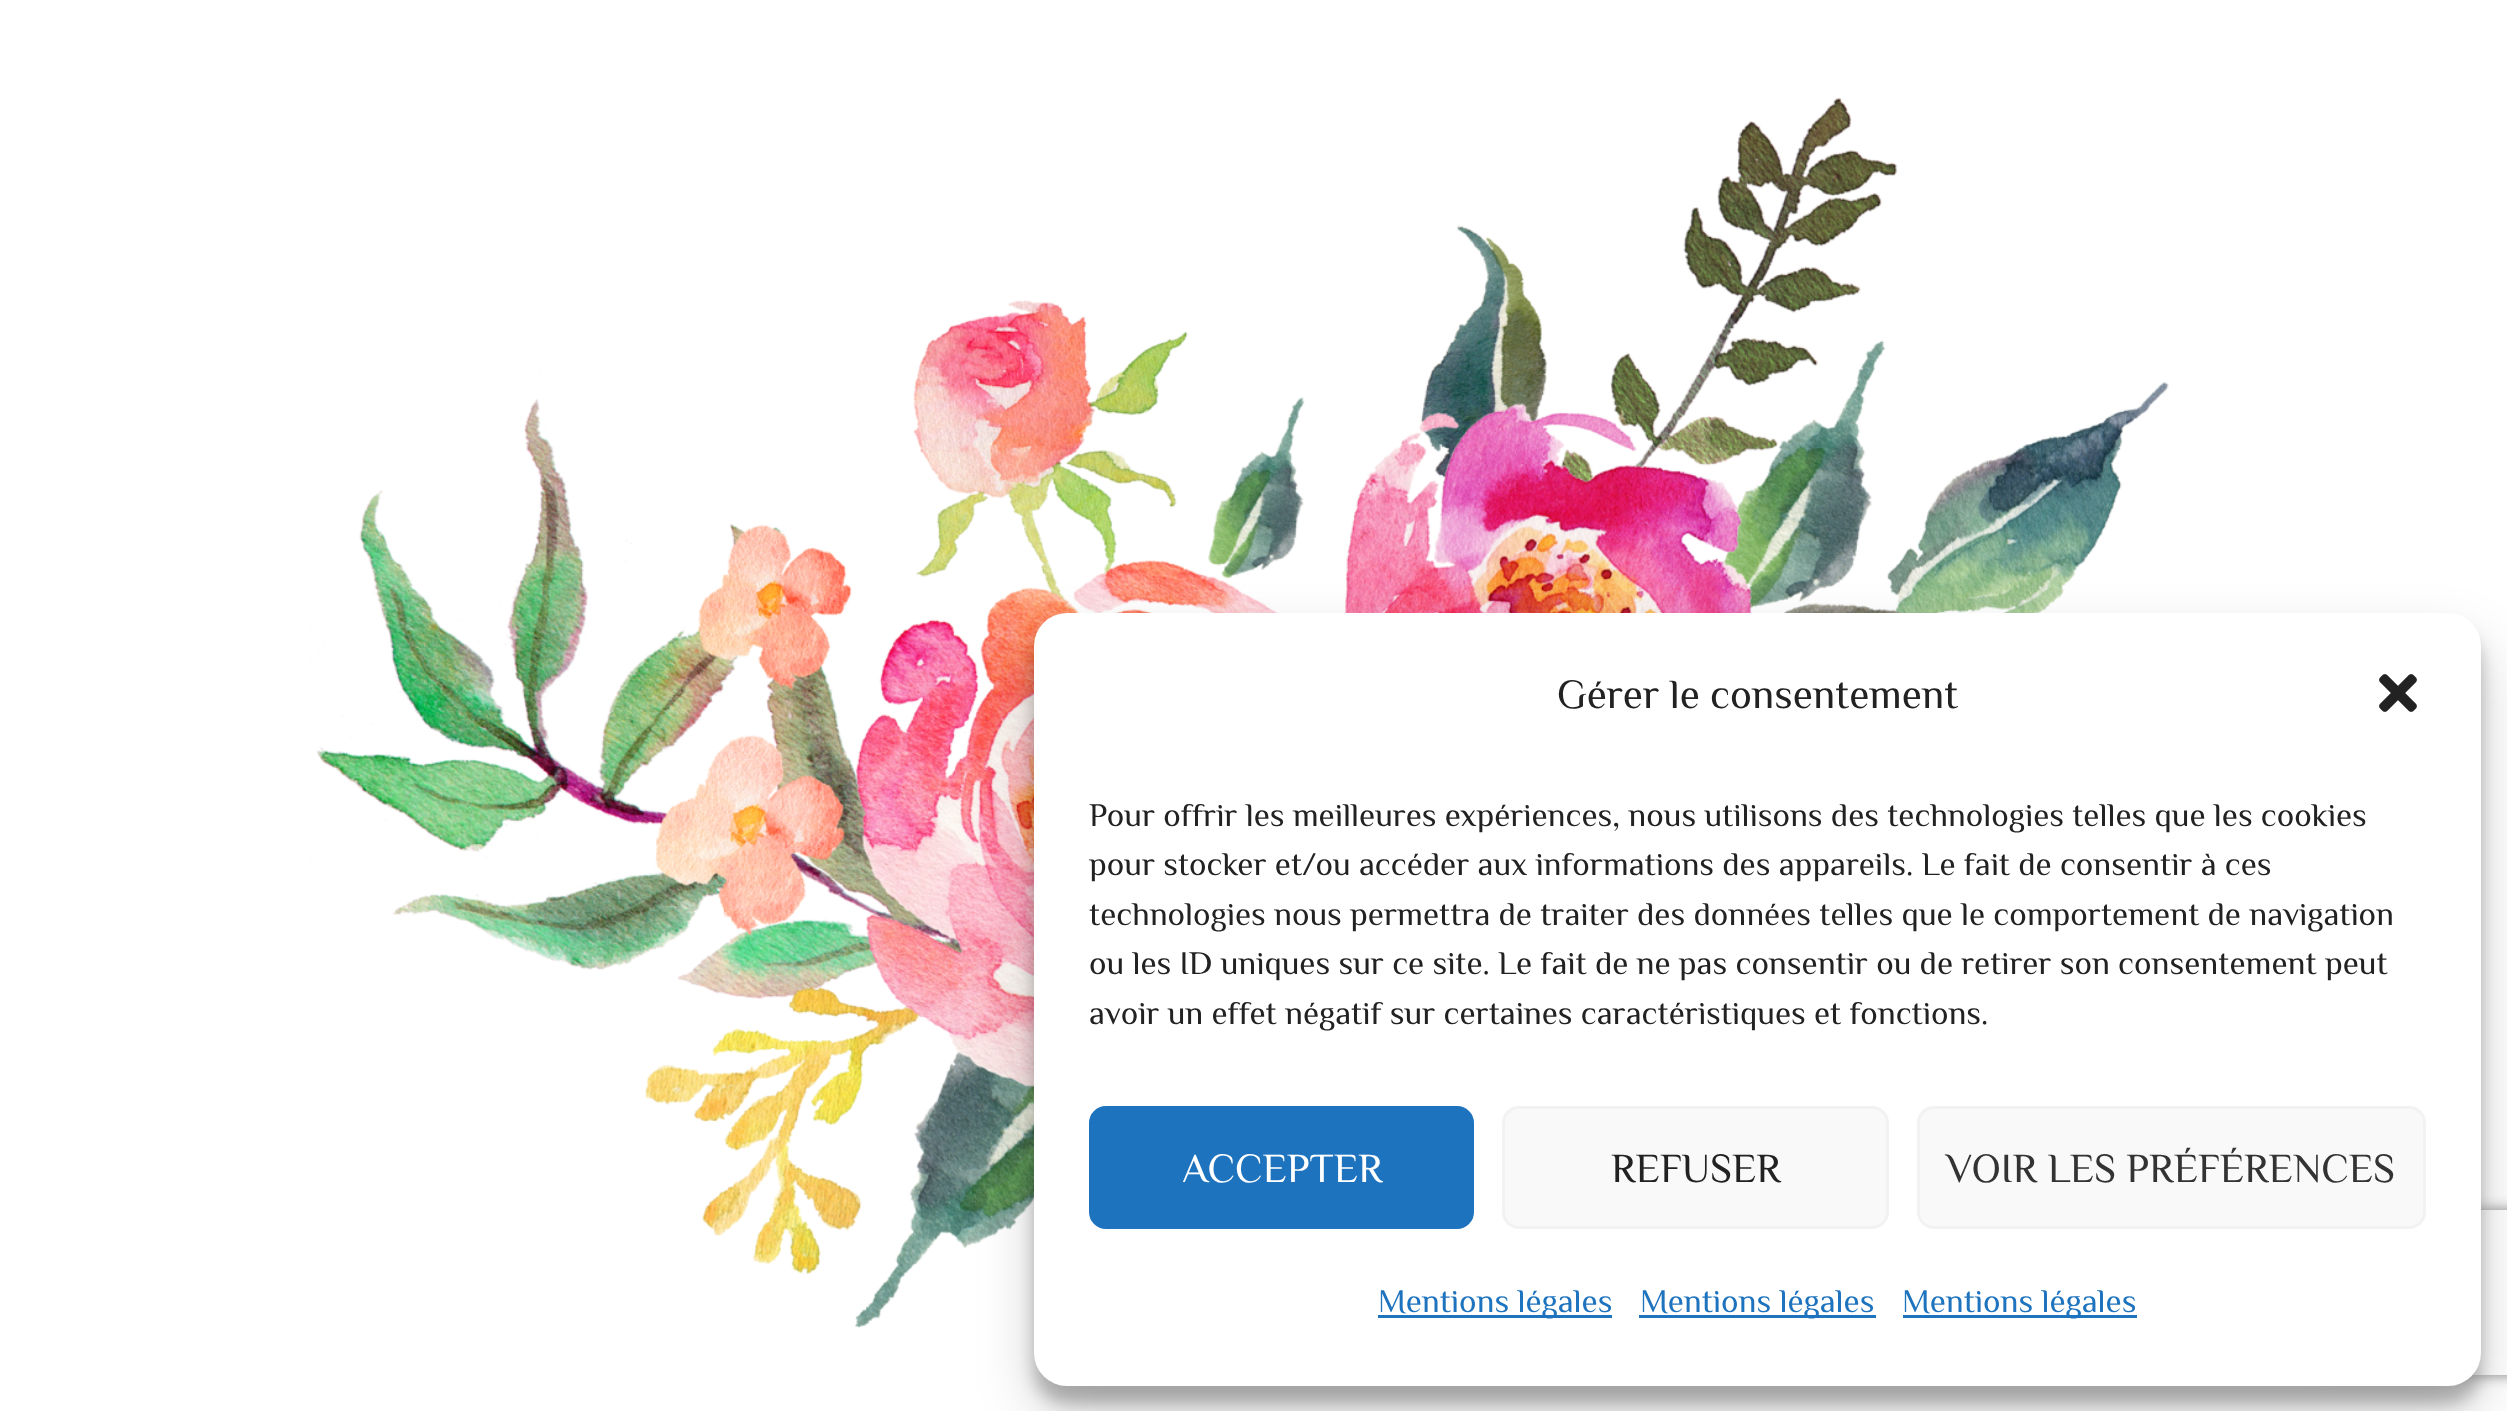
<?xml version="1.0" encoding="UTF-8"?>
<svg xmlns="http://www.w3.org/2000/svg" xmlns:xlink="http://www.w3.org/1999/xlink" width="2507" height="1411">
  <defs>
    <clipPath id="clip1"><path d="M 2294 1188 h 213 v 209 h -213 z m 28 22 h 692 c 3.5 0 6 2.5 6 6 v 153 c 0 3.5 -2.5 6 -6 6 h -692 c -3.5 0 -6 -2.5 -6 -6 v -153 c 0 -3.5 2.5 -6 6 -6 z" clip-rule="evenodd" /></clipPath>
  </defs>
  <rect width="100%" height="100%" fill="#ffffff" />
  <image x="305" y="97" width="1864" height="1231" xlink:href="image1.png" />
  <rect x="1034" y="630" width="1447" height="773" rx="33" fill="#000000" fill-opacity="0.23" filter="blur(8px)" />
  <rect x="1034" y="641" width="1447" height="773" rx="33" fill="#000000" fill-opacity="0.19" filter="blur(27.5px)" />
  <g clip-path="url(#clip1)">
    <rect x="2316" y="1210" width="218" height="165" rx="6" fill="#808080" filter="blur(7px)" />
  </g>
  <rect x="1034" y="613" width="1447" height="773" rx="33" fill="#ffffff" />
  <image x="2379" y="674" width="38" height="38" xlink:href="image2.png" />
  <rect x="1090.5" y="1107.5" width="382" height="120" rx="15.5" fill="#1e73be" stroke="#1e73be" stroke-width="3" />
  <rect x="1503.5" y="1107.5" width="384" height="120" rx="15.5" fill="#f9f9f9" stroke="#f2f2f2" stroke-width="3" />
  <rect x="1918.5" y="1107.5" width="506" height="120" rx="15.5" fill="#f9f9f9" stroke="#f2f2f2" stroke-width="3" />
  <rect x="1378" y="1315" width="234" height="3" fill="#1e73be" />
  <rect x="1639" y="1315" width="237" height="3" fill="#1e73be" />
  <rect x="1903" y="1315" width="234" height="3" fill="#1e73be" />
  <text x="1557" y="708" style="font-family: Philosopher; font-size: 41.25px; fill: #222222">Gérer le consentement</text>
  <text x="1089" y="826" style="font-family: Philosopher; font-size: 33px; fill: #222222">Pour offrir les meilleures expériences, nous utilisons des technologies telles que les cookies</text>
  <text x="1089" y="875" style="font-family: Philosopher; font-size: 33px; fill: #222222">pour stocker et/ou accéder aux informations des appareils. Le fait de consentir à ces</text>
  <text x="1089" y="925" style="font-family: Philosopher; font-size: 33px; fill: #222222">technologies nous permettra de traiter des données telles que le comportement de navigation</text>
  <text x="1089" y="974" style="font-family: Philosopher; font-size: 33px; fill: #222222">ou les ID uniques sur ce site. Le fait de ne pas consentir ou de retirer son consentement peut</text>
  <text x="1089" y="1024" style="font-family: Philosopher; font-size: 33px; fill: #222222">avoir un effet négatif sur certaines caractéristiques et fonctions.</text>
  <text x="1182" y="1182" style="font-family: Philosopher; font-size: 41.25px; fill: #ffffff">ACCEPTER</text>
  <text x="1611" y="1182" style="font-family: Philosopher; font-size: 41.25px; fill: #222222">REFUSER</text>
  <text x="1946" y="1182" style="font-family: Philosopher; font-size: 41.25px; fill: #333333">VOIR LES PRÉFÉRENCES</text>
  <text x="1378" y="1312" style="font-family: Philosopher; font-size: 33px; fill: #1e73be">Mentions légales</text>
  <text x="1640" y="1312" style="font-family: Philosopher; font-size: 33px; fill: #1e73be">Mentions légales</text>
  <text x="1902" y="1312" style="font-family: Philosopher; font-size: 33px; fill: #1e73be">Mentions légales</text>
</svg>
